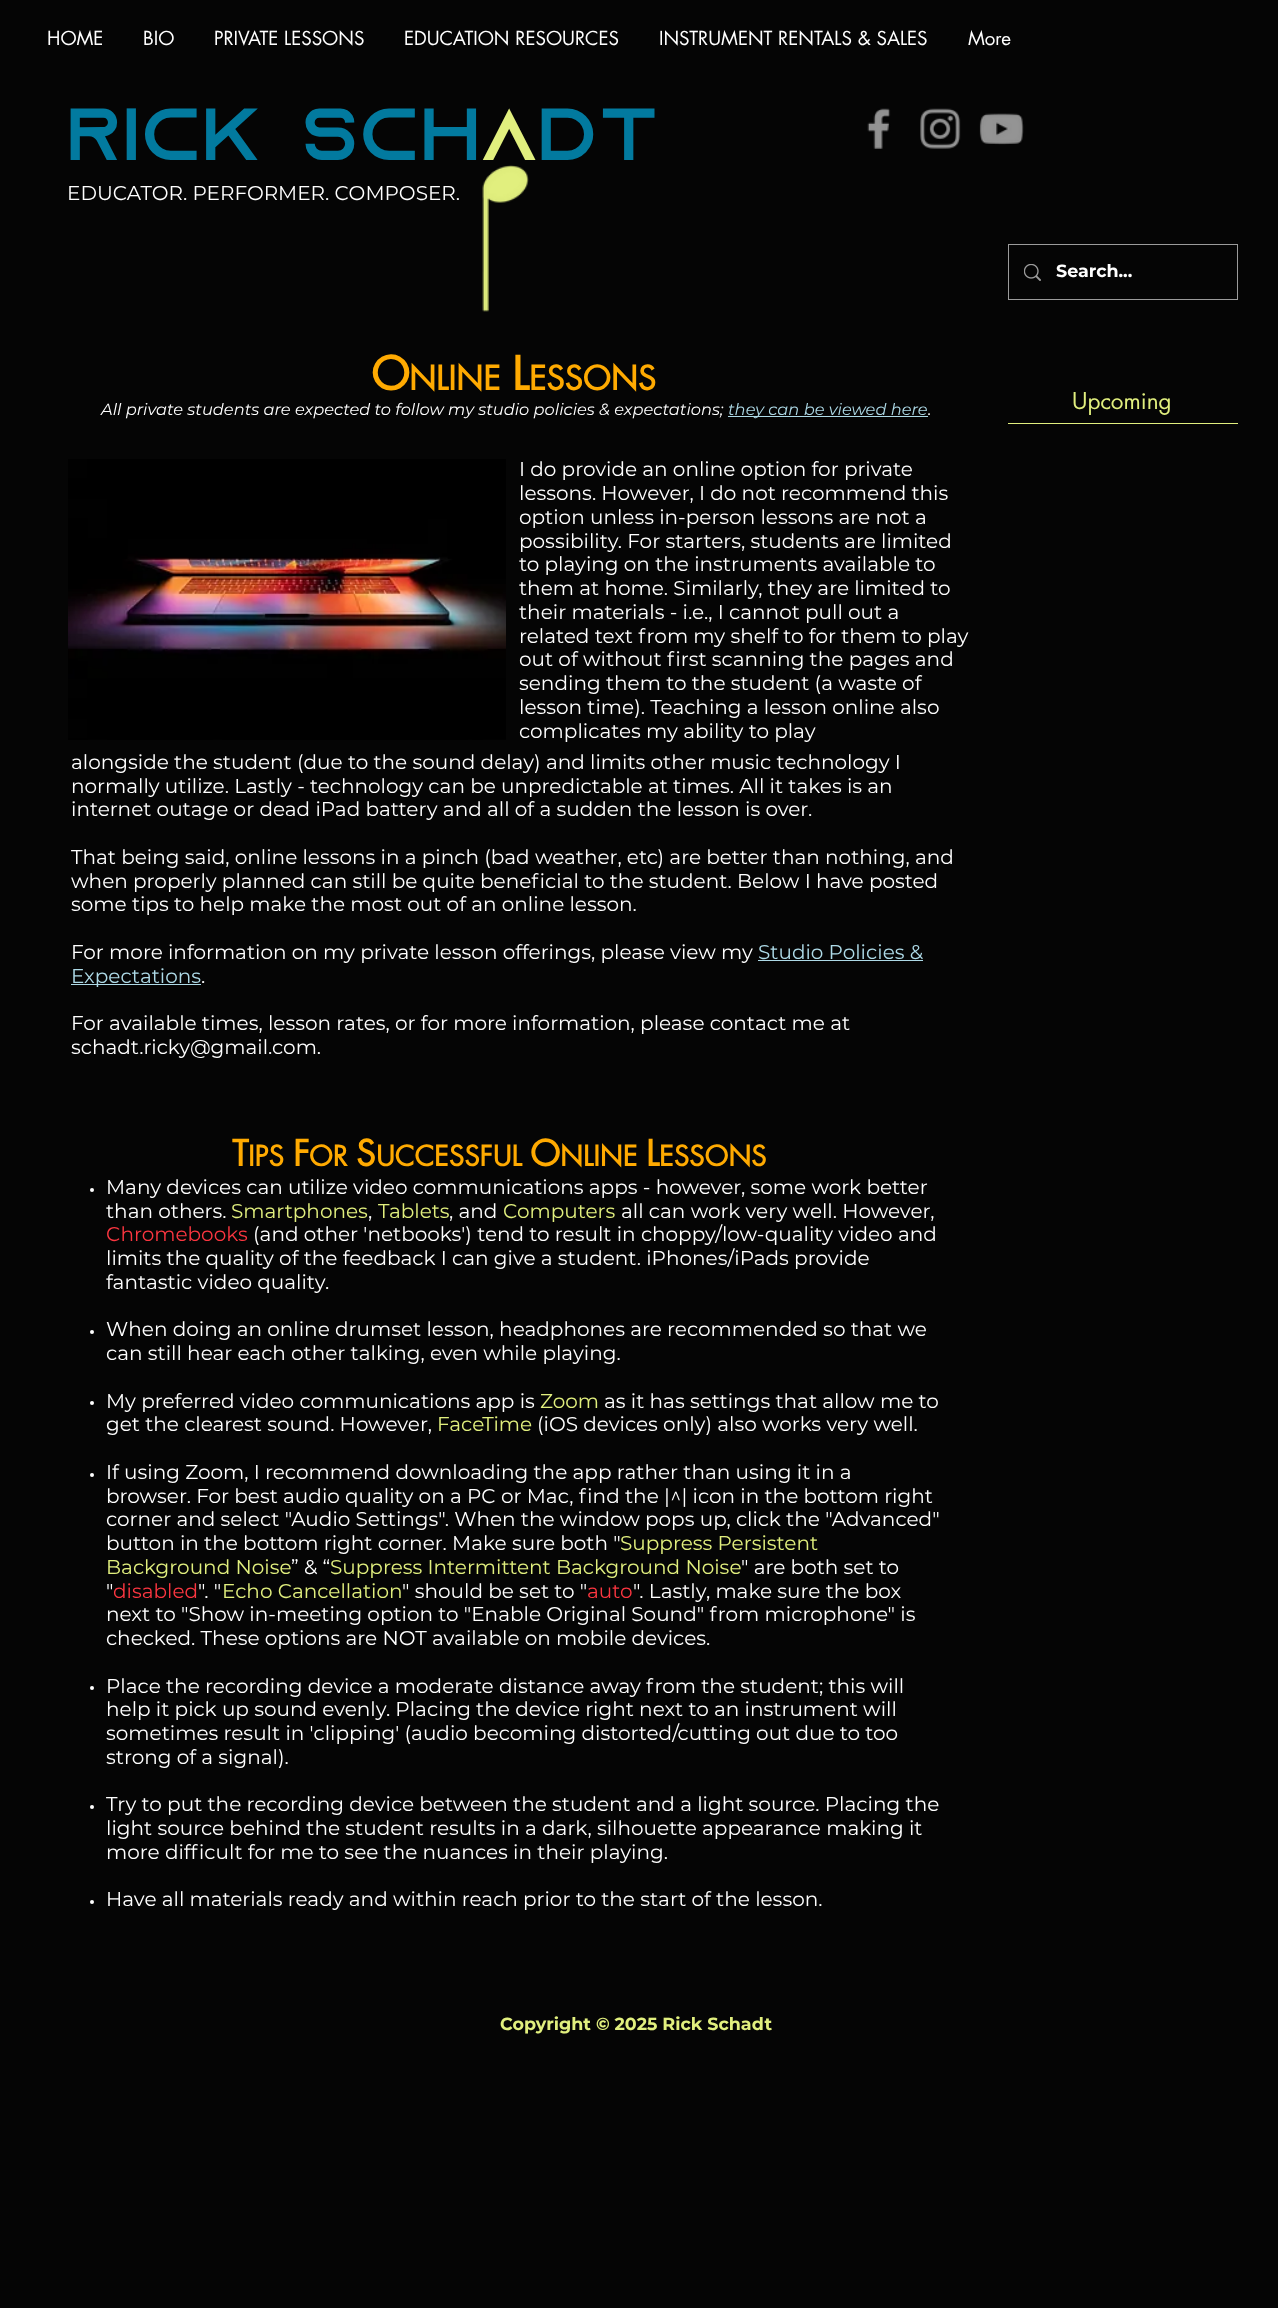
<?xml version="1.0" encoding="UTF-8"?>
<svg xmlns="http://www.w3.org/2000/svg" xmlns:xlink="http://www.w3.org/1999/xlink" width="1278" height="2308">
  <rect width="100%" height="100%" fill="#050505" />
  <image x="482" y="165" width="47" height="147" xlink:href="image1.png" />
  <image x="867" y="108" width="24" height="41" xlink:href="image2.png" />
  <image x="920" y="108" width="41" height="41" xlink:href="image3.png" />
  <image x="979" y="113" width="45" height="32" xlink:href="image4.png" />
  <rect x="1008.5" y="244.5" width="229" height="55" fill="none" stroke="#9b9b9b" />
  <image x="1024" y="264" width="17" height="17" xlink:href="image5.png" />
  <rect x="728" y="416" width="200" height="1" fill="#aedae7" />
  <image x="68" y="459" width="438" height="281" xlink:href="image6.png" />
  <rect x="758" y="960" width="165" height="1" fill="#aedae7" />
  <rect x="71" y="984" width="130" height="1" fill="#aedae7" />
  <circle cx="92" cy="1190" r="2" fill="#ffffff" />
  <circle cx="92" cy="1332" r="2" fill="#ffffff" />
  <circle cx="92" cy="1403" r="2" fill="#ffffff" />
  <circle cx="92" cy="1475" r="2" fill="#ffffff" />
  <circle cx="92" cy="1688" r="2" fill="#ffffff" />
  <circle cx="92" cy="1807" r="2" fill="#ffffff" />
  <circle cx="92" cy="1902" r="2" fill="#ffffff" />
  <rect x="1008" y="423" width="230" height="1" fill="#e1ef7e" />
  <text x="47" y="45" style="font-family: futura; font-size: 18.75px; fill: #ffffff">HOME</text>
  <text x="143" y="45" style="font-family: futura; font-size: 18.75px; fill: #ffffff">BIO</text>
  <text x="214" y="45" style="font-family: futura; font-size: 18.75px; fill: #ffffff">PRIVATE LESSONS</text>
  <text x="404" y="45" style="font-family: futura; font-size: 18.75px; fill: #ffffff">EDUCATION RESOURCES</text>
  <text x="659" y="45" style="font-family: futura; font-size: 18.75px; fill: #ffffff">INSTRUMENT RENTALS &amp; SALES</text>
  <text x="968" y="45" style="font-family: futura; font-size: 18.75px; fill: #ffffff">More</text>
  <text x="67" y="160" style="font-family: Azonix; font-size: 73.75px; letter-spacing: 2.25px; fill: #027a9f">RICK SCH</text>
  <text x="482" y="160" style="font-family: Azonix; font-size: 73.75px; letter-spacing: 2.25px; fill: #e1ef7e">A</text>
  <text x="538" y="160" style="font-family: Azonix; font-size: 73.75px; letter-spacing: 2.25px; fill: #027a9f">DT</text>
  <text x="67" y="200" style="font-family: Montserrat; font-size: 20px; fill: #ffffff">EDUCATOR. PERFORMER. COMPOSER.</text>
  <text x="1056" y="277" style="font-family: Montserrat; font-size: 17.5px; font-weight: bold; fill: #ffffff">Search...</text>
  <text x="371" y="390" style="font-family: futura; font-size: 45px; font-weight: bold; fill: #ffaa01">O</text>
  <text x="409" y="390" style="font-family: futura; font-size: 32.5px; font-weight: bold; fill: #ffaa01">NLINE</text>
  <text x="512" y="390" style="font-family: futura; font-size: 45px; font-weight: bold; fill: #ffaa01">L</text>
  <text x="529" y="390" style="font-family: futura; font-size: 32.5px; font-weight: bold; fill: #ffaa01">ESSONS</text>
  <text x="101" y="415" style="font-family: Montserrat; font-size: 16.25px; font-style: italic; fill: #ffffff">All private students are expected to follow my studio policies &amp; expectations;</text>
  <text x="728" y="415" style="font-family: Montserrat; font-size: 16.25px; font-style: italic; fill: #aedae7">they can be viewed here</text>
  <text x="928" y="415" style="font-family: Montserrat; font-size: 16.25px; font-style: italic; fill: #ffffff">.</text>
  <text x="519" y="476" style="font-family: Montserrat; font-size: 20px; fill: #ffffff">I do provide an online option for private</text>
  <text x="519" y="500" style="font-family: Montserrat; font-size: 20px; fill: #ffffff">lessons. However, I do not recommend this</text>
  <text x="519" y="524" style="font-family: Montserrat; font-size: 20px; fill: #ffffff">option unless in-person lessons are not a</text>
  <text x="519" y="548" style="font-family: Montserrat; font-size: 20px; fill: #ffffff">possibility. For starters, students are limited</text>
  <text x="519" y="571" style="font-family: Montserrat; font-size: 20px; fill: #ffffff">to playing on the instruments available to</text>
  <text x="519" y="595" style="font-family: Montserrat; font-size: 20px; fill: #ffffff">them at home. Similarly, they are limited to</text>
  <text x="519" y="619" style="font-family: Montserrat; font-size: 20px; fill: #ffffff">their materials - i.e., I cannot pull out a</text>
  <text x="519" y="643" style="font-family: Montserrat; font-size: 20px; fill: #ffffff">related text from my shelf to for them to play</text>
  <text x="519" y="666" style="font-family: Montserrat; font-size: 20px; fill: #ffffff">out of without first scanning the pages and</text>
  <text x="519" y="690" style="font-family: Montserrat; font-size: 20px; fill: #ffffff">sending them to the student (a waste of</text>
  <text x="519" y="714" style="font-family: Montserrat; font-size: 20px; fill: #ffffff">lesson time). Teaching a lesson online also</text>
  <text x="519" y="738" style="font-family: Montserrat; font-size: 20px; fill: #ffffff">complicates my ability to play</text>
  <text x="71" y="769" style="font-family: Montserrat; font-size: 20px; fill: #ffffff">alongside the student (due to the sound delay) and limits other music technology I</text>
  <text x="71" y="793" style="font-family: Montserrat; font-size: 20px; fill: #ffffff">normally utilize. Lastly - technology can be unpredictable at times. All it takes is an</text>
  <text x="71" y="816" style="font-family: Montserrat; font-size: 20px; fill: #ffffff">internet outage or dead iPad battery and all of a sudden the lesson is over.</text>
  <text x="71" y="864" style="font-family: Montserrat; font-size: 20px; fill: #ffffff">That being said, online lessons in a pinch (bad weather, etc) are better than nothing, and</text>
  <text x="71" y="888" style="font-family: Montserrat; font-size: 20px; fill: #ffffff">when properly planned can still be quite beneficial to the student. Below I have posted</text>
  <text x="71" y="911" style="font-family: Montserrat; font-size: 20px; fill: #ffffff">some tips to help make the most out of an online lesson.</text>
  <text x="71" y="959" style="font-family: Montserrat; font-size: 20px; fill: #ffffff">For more information on my private lesson offerings, please view my</text>
  <text x="758" y="959" style="font-family: Montserrat; font-size: 20px; fill: #aedae7">Studio Policies &amp;</text>
  <text x="71" y="983" style="font-family: Montserrat; font-size: 20px; fill: #aedae7">Expectations</text>
  <text x="201" y="983" style="font-family: Montserrat; font-size: 20px; fill: #ffffff">.</text>
  <text x="71" y="1030" style="font-family: Montserrat; font-size: 20px; fill: #ffffff">For available times, lesson rates, or for more information, please contact me at</text>
  <text x="71" y="1054" style="font-family: Montserrat; font-size: 20px; fill: #ffffff">schadt.ricky@gmail.com.</text>
  <text x="232" y="1166" style="font-family: futura; font-size: 35px; font-weight: bold; fill: #ffaa01">T</text>
  <text x="248" y="1166" style="font-family: futura; font-size: 27.5px; font-weight: bold; fill: #ffaa01">IPS</text>
  <text x="293" y="1166" style="font-family: futura; font-size: 35px; font-weight: bold; fill: #ffaa01">F</text>
  <text x="309" y="1166" style="font-family: futura; font-size: 27.5px; font-weight: bold; fill: #ffaa01">OR</text>
  <text x="356" y="1166" style="font-family: futura; font-size: 35px; font-weight: bold; fill: #ffaa01">S</text>
  <text x="376" y="1166" style="font-family: futura; font-size: 27.5px; font-weight: bold; fill: #ffaa01">UCCESSFUL</text>
  <text x="530" y="1166" style="font-family: futura; font-size: 35px; font-weight: bold; fill: #ffaa01">O</text>
  <text x="560" y="1166" style="font-family: futura; font-size: 27.5px; font-weight: bold; fill: #ffaa01">NLINE</text>
  <text x="646" y="1166" style="font-family: futura; font-size: 35px; font-weight: bold; fill: #ffaa01">L</text>
  <text x="659" y="1166" style="font-family: futura; font-size: 27.5px; font-weight: bold; fill: #ffaa01">ESSONS</text>
  <text x="106" y="1194" style="font-family: Montserrat; font-size: 20px; fill: #ffffff">Many devices can utilize video communications apps - however, some work better</text>
  <text x="106" y="1218" style="font-family: Montserrat; font-size: 20px; fill: #ffffff">than others.</text>
  <text x="231" y="1218" style="font-family: Montserrat; font-size: 20px; fill: #e1ef7e">Smartphones</text>
  <text x="368" y="1218" style="font-family: Montserrat; font-size: 20px; fill: #ffffff">,</text>
  <text x="378" y="1218" style="font-family: Montserrat; font-size: 20px; fill: #e1ef7e">Tablets</text>
  <text x="449" y="1218" style="font-family: Montserrat; font-size: 20px; fill: #ffffff">, and</text>
  <text x="503" y="1218" style="font-family: Montserrat; font-size: 20px; fill: #e1ef7e">Computers</text>
  <text x="621" y="1218" style="font-family: Montserrat; font-size: 20px; fill: #ffffff">all can work very well. However,</text>
  <text x="106" y="1241" style="font-family: Montserrat; font-size: 20px; fill: #fb3640">Chromebooks</text>
  <text x="253" y="1241" style="font-family: Montserrat; font-size: 20px; fill: #ffffff">(and other 'netbooks') tend to result in choppy/low-quality video and</text>
  <text x="106" y="1265" style="font-family: Montserrat; font-size: 20px; fill: #ffffff">limits the quality of the feedback I can give a student. iPhones/iPads provide</text>
  <text x="106" y="1289" style="font-family: Montserrat; font-size: 20px; fill: #ffffff">fantastic video quality.</text>
  <text x="106" y="1336" style="font-family: Montserrat; font-size: 20px; fill: #ffffff">When doing an online drumset lesson, headphones are recommended so that we</text>
  <text x="106" y="1360" style="font-family: Montserrat; font-size: 20px; fill: #ffffff">can still hear each other talking, even while playing.</text>
  <text x="106" y="1408" style="font-family: Montserrat; font-size: 20px; fill: #ffffff">My preferred video communications app is</text>
  <text x="540" y="1408" style="font-family: Montserrat; font-size: 20px; fill: #e1ef7e">Zoom</text>
  <text x="604" y="1408" style="font-family: Montserrat; font-size: 20px; fill: #ffffff">as it has settings that allow me to</text>
  <text x="106" y="1431" style="font-family: Montserrat; font-size: 20px; fill: #ffffff">get the clearest sound. However,</text>
  <text x="437" y="1431" style="font-family: Montserrat; font-size: 20px; fill: #e1ef7e">FaceTime</text>
  <text x="537" y="1431" style="font-family: Montserrat; font-size: 20px; fill: #ffffff">(iOS devices only) also works very well.</text>
  <text x="106" y="1479" style="font-family: Montserrat; font-size: 20px; fill: #ffffff">If using Zoom, I recommend downloading the app rather than using it in a</text>
  <text x="106" y="1503" style="font-family: Montserrat; font-size: 20px; fill: #ffffff">browser. For best audio quality on a PC or Mac, find the |^| icon in the bottom right</text>
  <text x="106" y="1526" style="font-family: Montserrat; font-size: 20px; fill: #ffffff">corner and select "Audio Settings". When the window pops up, click the "Advanced"</text>
  <text x="106" y="1550" style="font-family: Montserrat; font-size: 20px; fill: #ffffff">button in the bottom right corner. Make sure both "</text>
  <text x="620" y="1550" style="font-family: Montserrat; font-size: 20px; fill: #e1ef7e">Suppress Persistent</text>
  <text x="106" y="1574" style="font-family: Montserrat; font-size: 20px; fill: #e1ef7e">Background Noise</text>
  <text x="291" y="1574" style="font-family: Montserrat; font-size: 20px; fill: #ffffff">” &amp; “</text>
  <text x="330" y="1574" style="font-family: Montserrat; font-size: 20px; fill: #e1ef7e">Suppress Intermittent Background Noise</text>
  <text x="741" y="1574" style="font-family: Montserrat; font-size: 20px; fill: #ffffff">" are both set to</text>
  <text x="106" y="1598" style="font-family: Montserrat; font-size: 20px; fill: #ffffff">"</text>
  <text x="113" y="1598" style="font-family: Montserrat; font-size: 20px; fill: #fb3640">disabled</text>
  <text x="198" y="1598" style="font-family: Montserrat; font-size: 20px; fill: #ffffff">". "</text>
  <text x="222" y="1598" style="font-family: Montserrat; font-size: 20px; fill: #e1ef7e">Echo Cancellation</text>
  <text x="402" y="1598" style="font-family: Montserrat; font-size: 20px; fill: #ffffff">" should be set to "</text>
  <text x="587" y="1598" style="font-family: Montserrat; font-size: 20px; fill: #fb3640">auto</text>
  <text x="633" y="1598" style="font-family: Montserrat; font-size: 20px; fill: #ffffff">". Lastly, make sure the box</text>
  <text x="106" y="1621" style="font-family: Montserrat; font-size: 20px; fill: #ffffff">next to "Show in-meeting option to "Enable Original Sound" from microphone" is</text>
  <text x="106" y="1645" style="font-family: Montserrat; font-size: 20px; fill: #ffffff">checked. These options are NOT available on mobile devices.</text>
  <text x="106" y="1693" style="font-family: Montserrat; font-size: 20px; fill: #ffffff">Place the recording device a moderate distance away from the student; this will</text>
  <text x="106" y="1716" style="font-family: Montserrat; font-size: 20px; fill: #ffffff">help it pick up sound evenly. Placing the device right next to an instrument will</text>
  <text x="106" y="1740" style="font-family: Montserrat; font-size: 20px; fill: #ffffff">sometimes result in 'clipping' (audio becoming distorted/cutting out due to too</text>
  <text x="106" y="1764" style="font-family: Montserrat; font-size: 20px; fill: #ffffff">strong of a signal).</text>
  <text x="106" y="1811" style="font-family: Montserrat; font-size: 20px; fill: #ffffff">Try to put the recording device between the student and a light source. Placing the</text>
  <text x="106" y="1835" style="font-family: Montserrat; font-size: 20px; fill: #ffffff">light source behind the student results in a dark, silhouette appearance making it</text>
  <text x="106" y="1859" style="font-family: Montserrat; font-size: 20px; fill: #ffffff">more difficult for me to see the nuances in their playing.</text>
  <text x="106" y="1906" style="font-family: Montserrat; font-size: 20px; fill: #ffffff">Have all materials ready and within reach prior to the start of the lesson.</text>
  <text x="1072" y="409" style="font-family: futura; font-size: 22.5px; fill: #e1ef7e">Upcoming</text>
  <text x="500" y="2030" style="font-family: Montserrat; font-size: 17.5px; font-weight: bold; fill: #e1ef7e">Copyright © 2025 Rick Schadt</text>
</svg>
